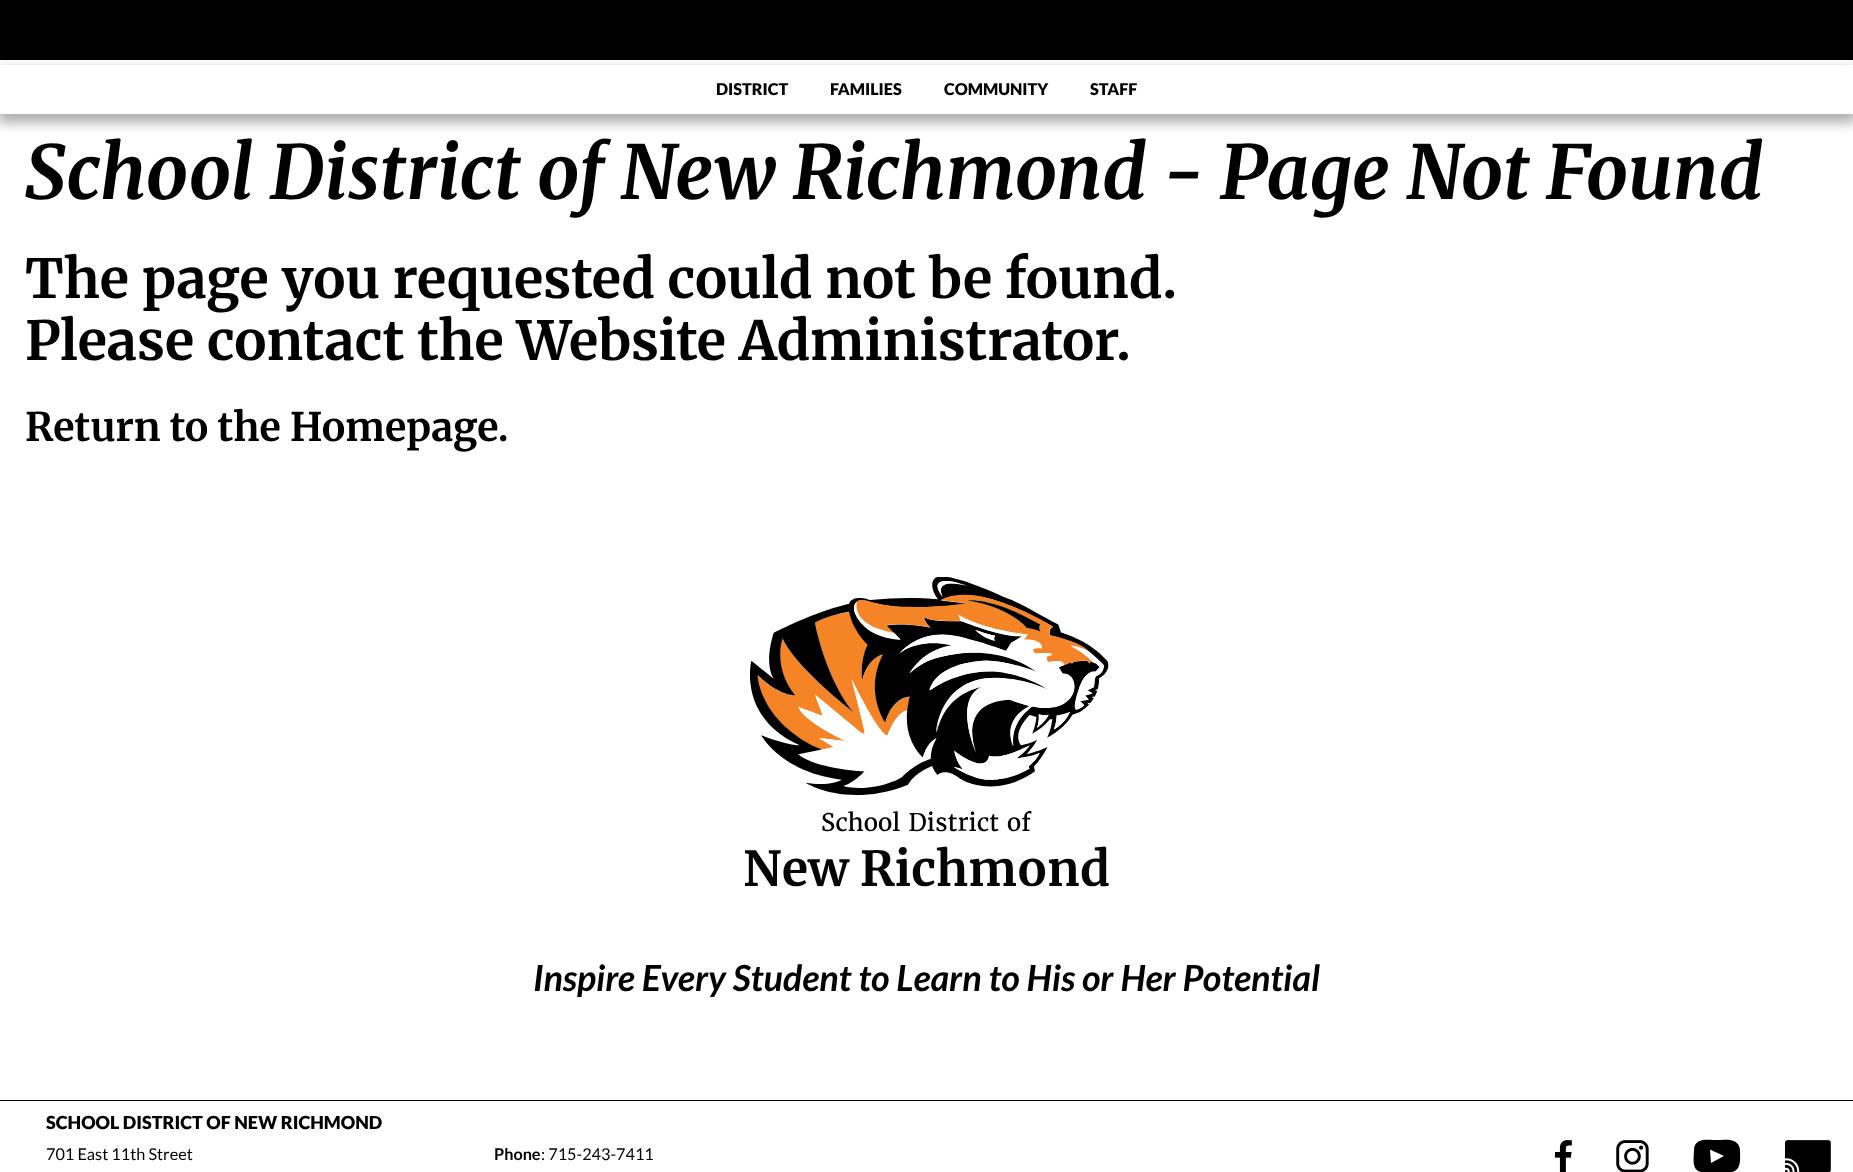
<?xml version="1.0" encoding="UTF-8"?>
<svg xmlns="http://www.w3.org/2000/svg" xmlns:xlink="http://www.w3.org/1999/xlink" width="1853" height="1172">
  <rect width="100%" height="100%" fill="#ffffff" />
  <rect width="1853" height="60" fill="#000000" />
  <rect x="-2" y="69" width="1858" height="54" fill="#000000" fill-opacity="0.31" filter="blur(6px)" />
  <rect y="65" width="1853" height="49" fill="#ffffff" />
  <image x="745" y="577" width="364" height="310" xlink:href="image1.png" />
  <rect y="1100" width="1853" height="1" fill="#000000" />
  <image x="1555" y="1140" width="17" height="32" xlink:href="image2.png" />
  <image x="1616" y="1140" width="33" height="32" xlink:href="image3.png" />
  <path d="M 1694 1150 c 0 7 -3 20 7 22 h 31 c 10 -2 8 -15 8 -22 c -1 -13 -16 -10 -23 -10 c -8 0 -23 -3 -23 10 z m 16 0 h 1 l 13 6 l -13 7 z" fill="#000000" />
  <image x="1785" y="1140" width="46" height="32" xlink:href="image4.png" />
  <text x="716" y="95" style="font-family: Lato; font-size: 16.25px; font-weight: 900; fill: #000000">DISTRICT</text>
  <text x="830" y="95" style="font-family: Lato; font-size: 16.25px; font-weight: 900; fill: #000000">FAMILIES</text>
  <text x="944" y="95" style="font-family: Lato; font-size: 16.25px; font-weight: 900; fill: #000000">COMMUNITY</text>
  <text x="1090" y="95" style="font-family: Lato; font-size: 16.25px; font-weight: 900; fill: #000000">STAFF</text>
  <text x="25" y="199" style="font-family: Merriweather; font-size: 74.25px; font-weight: bold; font-style: italic; fill: #000000">School District of New Richmond - Page Not Found</text>
  <text x="25" y="298" style="font-family: Merriweather; font-size: 54px; font-weight: bold; fill: #000000">The page you requested could not be found.</text>
  <text x="25" y="360" style="font-family: Merriweather; font-size: 54px; font-weight: bold; fill: #000000">Please contact the Website Administrator.</text>
  <text x="25" y="441" style="font-family: Merriweather; font-size: 39.4px; font-weight: bold; fill: #000000">Return to the Homepage.</text>
  <text x="533" y="991" style="font-family: Lato; font-size: 36px; font-weight: bold; font-style: italic; fill: #000000">Inspire Every Student to Learn to His or Her Potential</text>
  <text x="46" y="1129" style="font-family: Lato; font-size: 18px; font-weight: 900; fill: #000000">SCHOOL DISTRICT OF NEW RICHMOND</text>
  <text x="46" y="1160" style="font-family: Lato; font-size: 16.25px; fill: #000000">701 East 11th Street</text>
  <text x="494" y="1160" style="font-family: Lato; font-size: 16.25px; font-weight: bold; fill: #000000">Phone</text>
  <text x="541" y="1160" style="font-family: Lato; font-size: 16.25px; fill: #000000">: 715-243-7411</text>
</svg>
